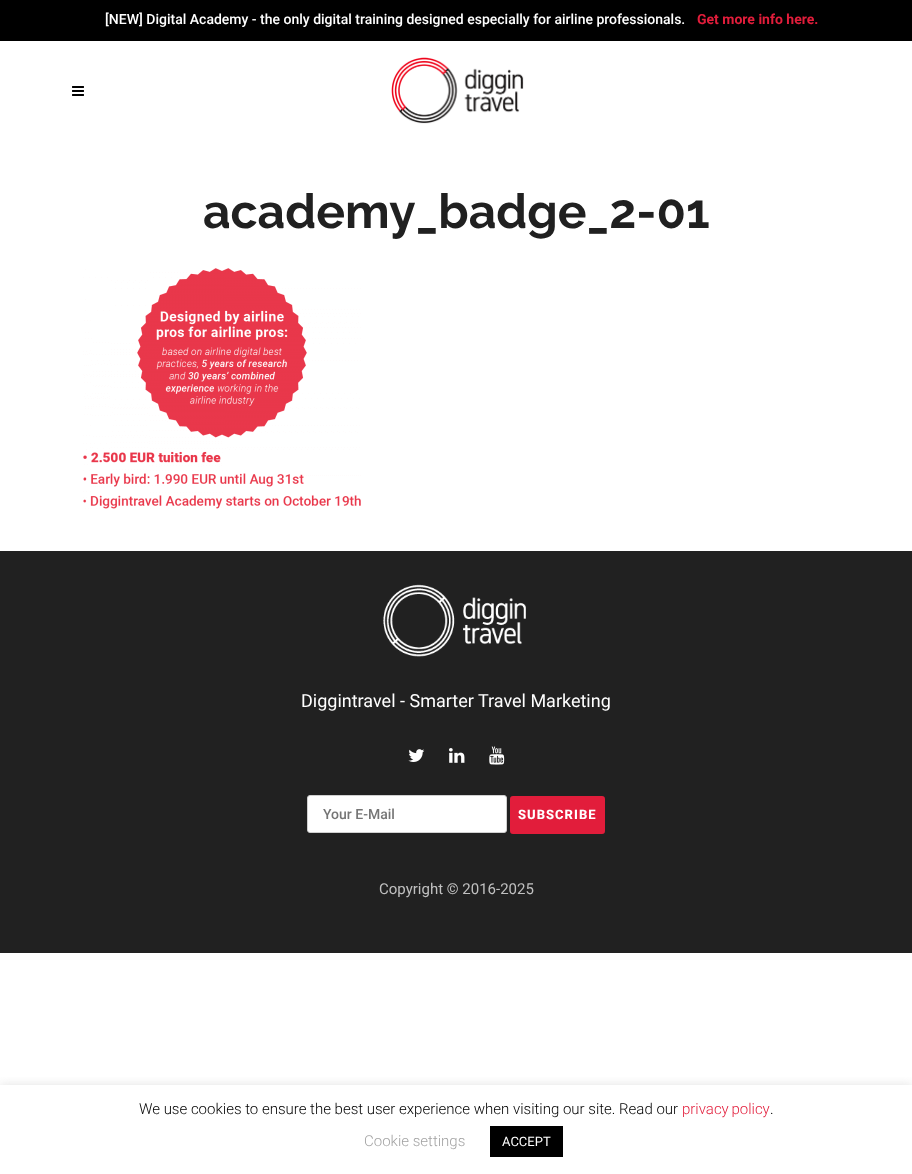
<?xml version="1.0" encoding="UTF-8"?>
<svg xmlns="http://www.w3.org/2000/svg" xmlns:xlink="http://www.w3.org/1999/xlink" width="912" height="1174">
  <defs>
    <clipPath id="clip1"><rect x="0" y="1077" width="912" height="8" /></clipPath>
  </defs>
  <rect width="100%" height="100%" fill="#ffffff" />
  <rect width="912" height="41" fill="#000000" />
  <image x="72" y="86" width="12" height="10" xlink:href="image1.png" />
  <image x="391" y="57" width="133" height="67" xlink:href="image2.png" />
  <image x="83" y="268" width="278" height="241" xlink:href="image3.png" />
  <rect y="551" width="912" height="402" fill="#212121" />
  <image x="383" y="584" width="143" height="73" xlink:href="image4.png" />
  <image x="408" y="749" width="17" height="13" xlink:href="image5.png" />
  <image x="449" y="748" width="16" height="15" xlink:href="image6.png" />
  <image x="489" y="746" width="16" height="19" xlink:href="image7.png" />
  <rect x="307.5" y="795.5" width="199" height="37" rx="2.5" fill="#ffffff" stroke="#cfcfcf" />
  <rect x="511" y="797" width="93" height="36" rx="2" fill="#e21d3b" stroke="#e21d3b" stroke-width="2" />
  <g clip-path="url(#clip1)">
    <rect y="1084" width="912" height="89" fill="#acabab" fill-opacity="0.3" filter="blur(5px)" />
  </g>
  <rect x="490" y="1126" width="73" height="31" fill="#000000" />
  <text x="105" y="24" style="font-family: Roboto; font-size: 14px; font-weight: 500; fill: #ffffff">[NEW] Digital Academy - the only digital training designed especially for airline professionals.</text>
  <text x="697" y="24" style="font-family: Roboto; font-size: 14px; font-weight: bold; fill: #e21d3b">Get more info here.</text>
  <text x="203" y="228" style="font-family: Raleway; font-size: 48px; font-weight: bold; fill: #202020">academy_badge_2-01</text>
  <text x="301" y="707" style="font-family: Roboto; font-size: 18px; fill: #ffffff">Diggintravel - Smarter Travel Marketing</text>
  <text x="323" y="819" style="font-family: Roboto; font-size: 14px; font-weight: 500; fill: #757575">Your E-Mail</text>
  <text x="518" y="819" style="font-family: Roboto; font-size: 13px; font-weight: 800; letter-spacing: 1px; fill: #ffffff">SUBSCRIBE</text>
  <text x="379" y="894" style="font-family: Roboto; font-size: 15px; fill: #c0c0c0">Copyright © 2016-2025</text>
  <text x="139" y="1114" style="font-family: Roboto; font-size: 15px; font-weight: 300; fill: #000000">We use cookies to ensure the best user experience when visiting our site. Read our</text>
  <text x="682" y="1114" word-spacing="-1" style="font-family: Roboto; font-size: 15px; font-weight: 300; fill: #e21d3b">privacy policy</text>
  <text x="770" y="1114" style="font-family: Roboto; font-size: 15px; font-weight: 300; fill: #000000">.</text>
  <text x="364" y="1146" style="font-family: Roboto; font-size: 15px; font-weight: 300; fill: #a3a3a3">Cookie settings</text>
  <text x="502" y="1146" style="font-family: Roboto; font-size: 13px; fill: #ffffff">ACCEPT</text>
</svg>
